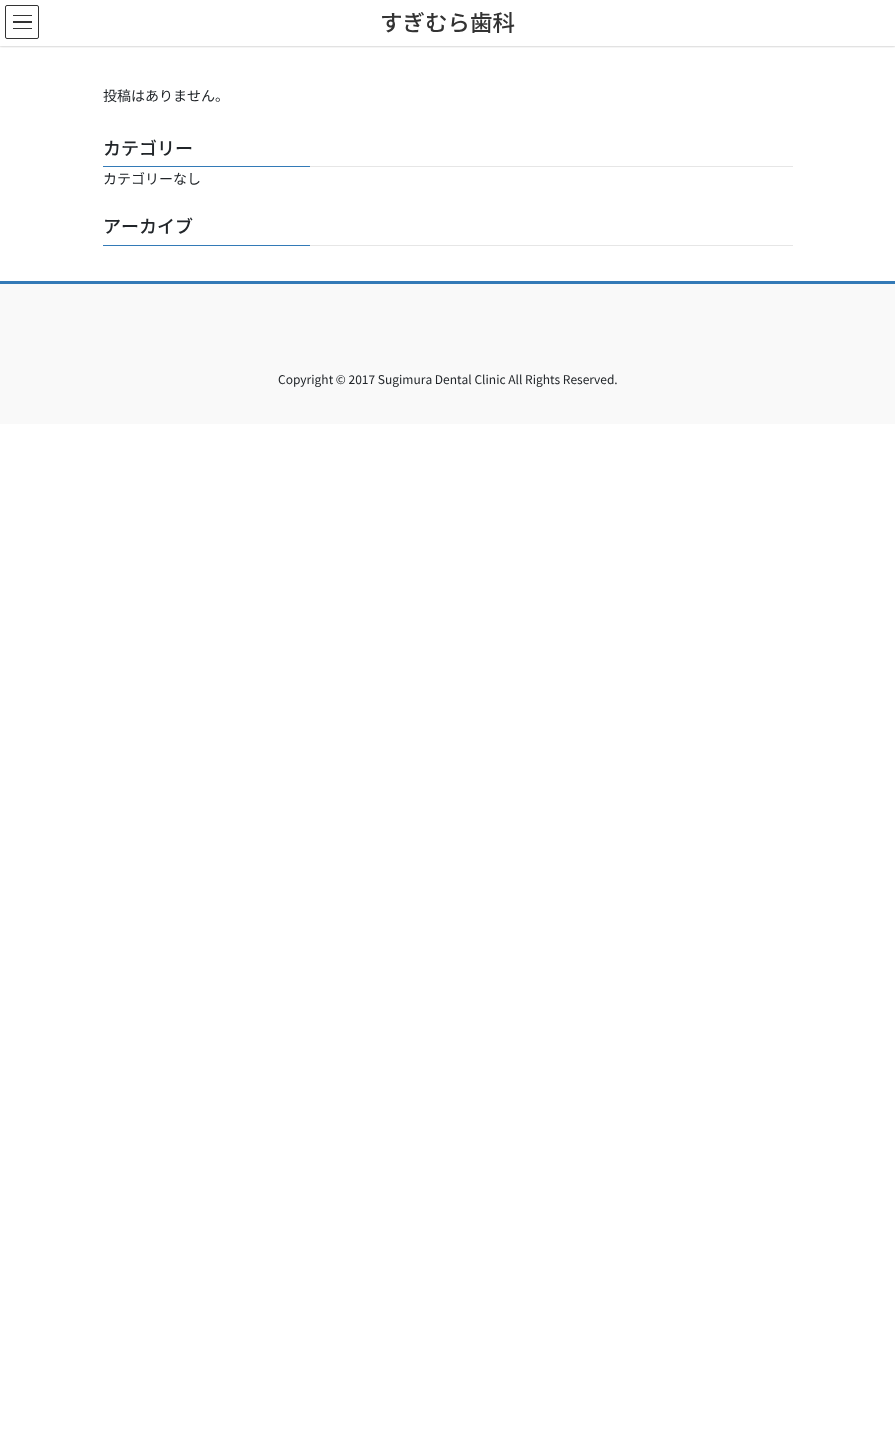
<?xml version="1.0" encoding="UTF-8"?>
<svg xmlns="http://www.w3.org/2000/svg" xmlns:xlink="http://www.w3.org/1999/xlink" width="895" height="1456">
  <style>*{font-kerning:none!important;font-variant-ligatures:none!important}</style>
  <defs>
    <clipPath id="clip1"><rect x="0" y="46" width="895" height="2" /></clipPath>
  </defs>
  <rect width="100%" height="100%" fill="#ffffff" />
  <rect y="46" width="895" height="1" fill="#f2f2f2" />
  <g clip-path="url(#clip1)">
    <rect y="1" width="895" height="46" fill="#000000" fill-opacity="0.1" filter="blur(1.5px)" />
  </g>
  <rect x="13" y="15" width="19" height="1" fill="#333333" />
  <rect x="13" y="21" width="19" height="2" fill="#333333" />
  <rect x="13" y="28" width="19" height="1" fill="#333333" />
  <rect x="5.5" y="5.5" width="33" height="33" rx="1.5" fill="none" stroke="#333333" />
  <rect x="310" y="166" width="483" height="1" fill="#e6e6e6" />
  <rect x="103" y="166" width="207" height="1" fill="#337ab7" />
  <rect x="310" y="245" width="483" height="1" fill="#e6e6e6" />
  <rect x="103" y="245" width="207" height="1" fill="#337ab7" />
  <rect y="284" width="895" height="140" fill="#f9f9f9" />
  <rect y="281" width="895" height="3" fill="#337ab7" />
  <text x="380" y="31" style="font-family: Noto Sans JP; font-size: 22.5px; font-weight: 500; fill: #333333">すぎむら歯科</text>
  <text x="103" y="101" style="font-family: Noto Sans JP; font-size: 14px; fill: #212529">投稿はありません。</text>
  <text x="103" y="155" style="font-family: Noto Sans JP; font-size: 18px; font-weight: 500; fill: #212529">カテゴリー</text>
  <text x="103" y="184" style="font-family: Noto Sans JP; font-size: 14px; fill: #212529">カテゴリーなし</text>
  <text x="103" y="233" style="font-family: Noto Sans JP; font-size: 18px; font-weight: 500; fill: #212529">アーカイブ</text>
  <text x="278" y="384" style="font-family: Noto Sans JP; font-size: 12px; fill: #212529">Copyright © 2017 Sugimura Dental Clinic All Rights Reserved.</text>
</svg>
